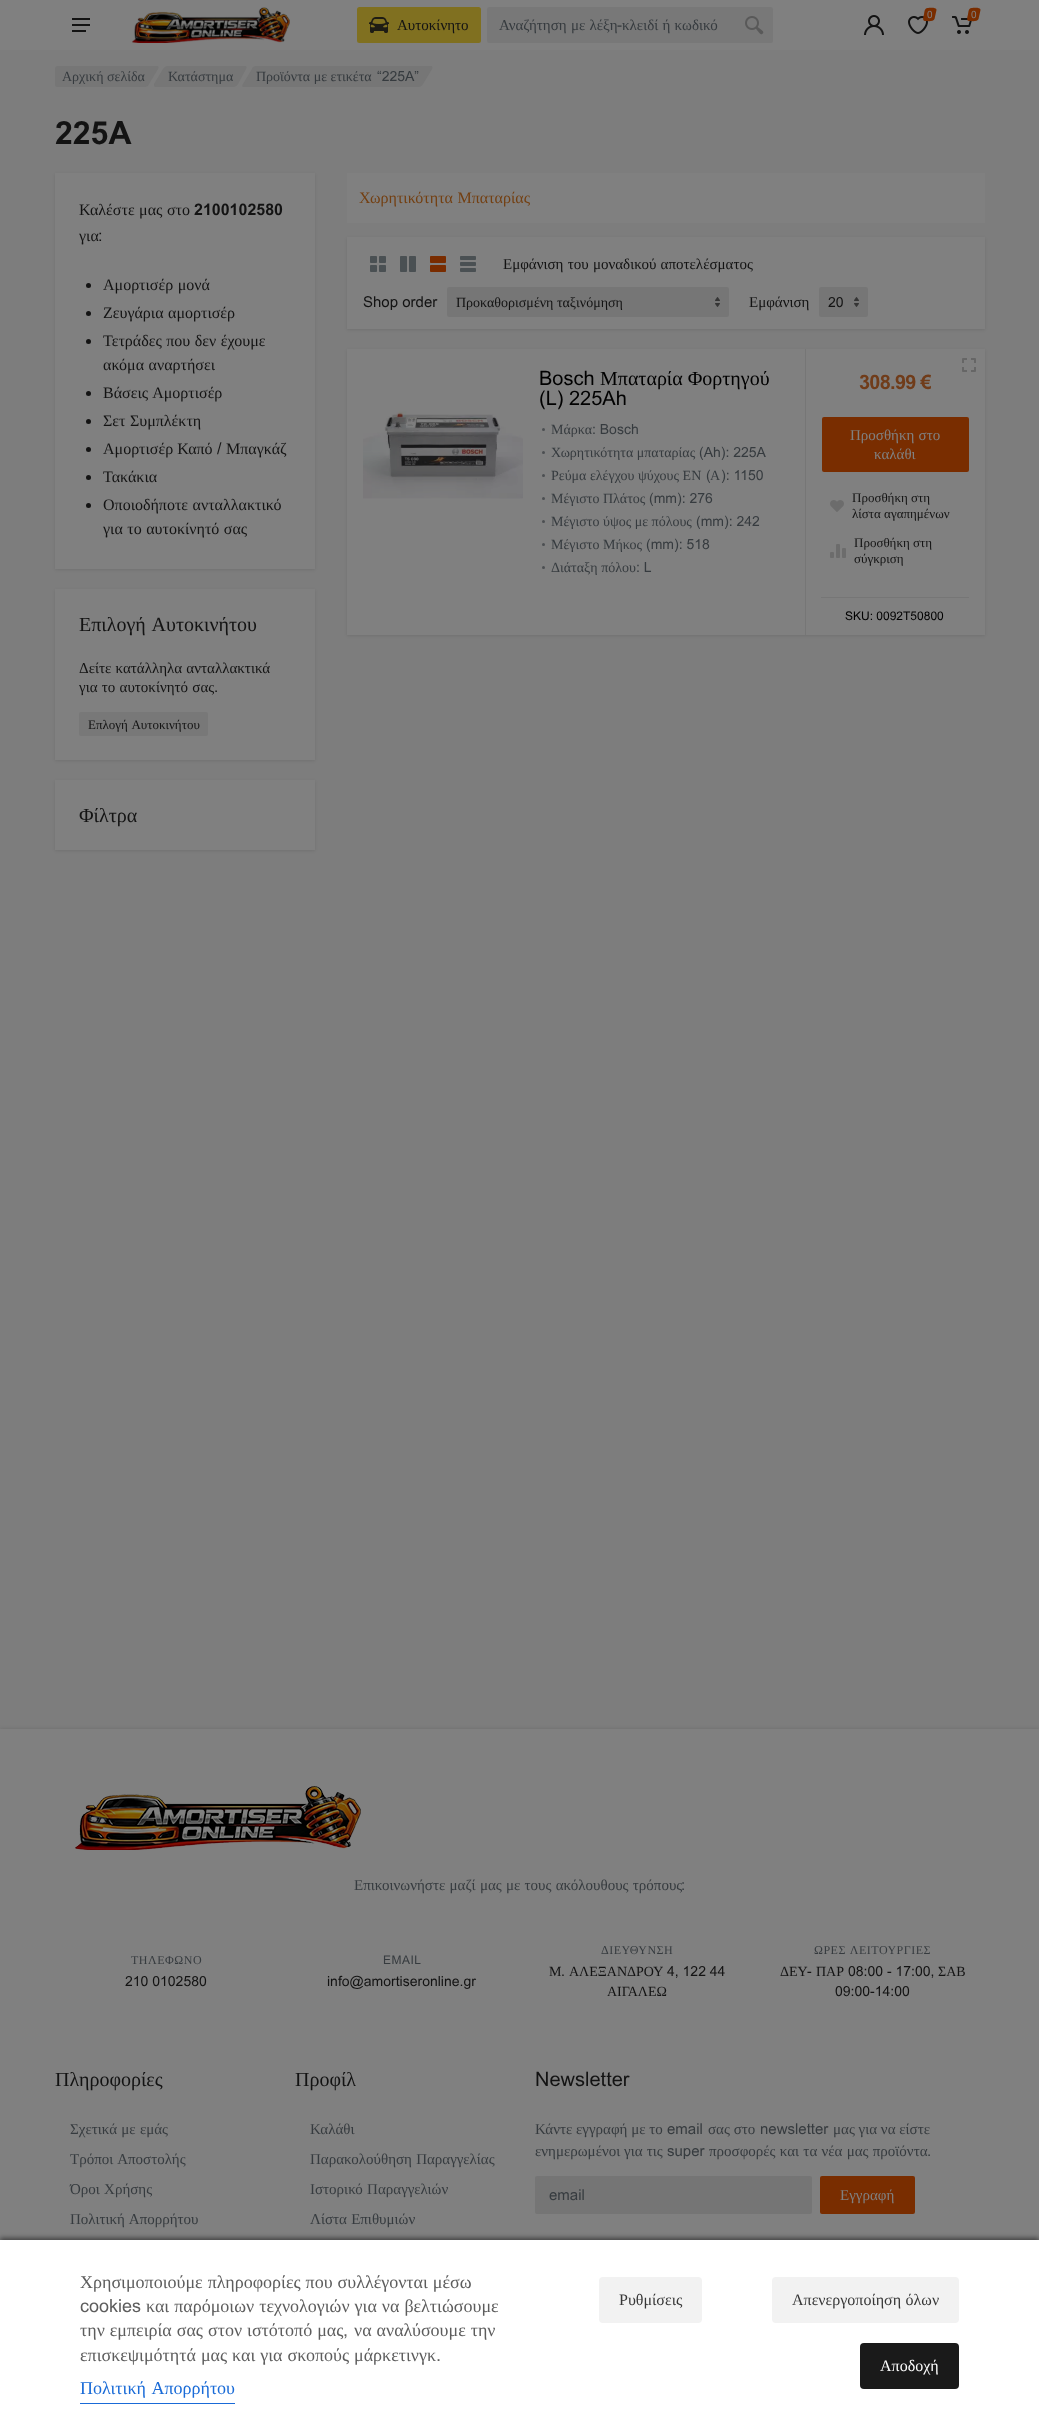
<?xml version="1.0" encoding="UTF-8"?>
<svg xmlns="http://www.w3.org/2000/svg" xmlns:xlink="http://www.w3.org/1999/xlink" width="1039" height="2422">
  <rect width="100%" height="100%" fill="#7d7d7d" />
  <rect width="1039" height="50" fill="#808080" />
  <image x="131" y="7" width="159" height="36" xlink:href="image1.png" />
  <image x="864" y="15" width="20" height="20" xlink:href="image2.png" />
  <image x="908" y="16" width="20" height="18" xlink:href="image3.png" />
  <path d="M 927.5 8 c 2 0 9 -1 9 2 l -2 9 c -1 3 -7 2 -9.5 2 c -3 0 -1.5 -4.5 -1 -6.5 c 0.5 -2.5 0.5 -6.5 3.5 -6.5 z" fill="#792d00" />
  <image x="952" y="16" width="20" height="18" xlink:href="image4.png" />
  <path d="M 971.5 8 c 2 0 9 -1 9 2 l -2 9 c -1 3 -7 2 -9.5 2 c -3 0 -1.5 -4.5 -1 -6.5 c 0.5 -2.5 0.5 -6.5 3.5 -6.5 z" fill="#792d00" />
  <image x="72" y="18" width="18" height="14" xlink:href="image5.png" />
  <rect x="357" y="7" width="124" height="36" rx="2.5" fill="#807020" />
  <image x="369" y="17" width="20" height="16" xlink:href="image6.png" />
  <rect x="487" y="7" width="286" height="36" rx="2.5" fill="#787878" />
  <image x="745" y="16" width="19" height="19" xlink:href="image7.png" />
  <path d="M 70 66 h 87 c 2 0 2 1 1 3 l -9 15 c 0 2 -3 3 -4 3 h -87 c -2 0 -3 -1 -2 -3 l 9 -15 c 1 -2 3 -3 5 -3 z" fill="#767676" />
  <rect x="55" y="66" width="85" height="21" rx="3" fill="#767676" />
  <path d="M 168 66 h 77 c 2 0 2 1 1 3 l -8 15 c -1 2 -3 3 -5 3 h -77 c -2 0 -2 -1 -2 -3 l 9 -15 c 1 -2 3 -3 5 -3 z" fill="#767676" />
  <path d="M 256 66 h 175 c 1 0 2 1 1 3 l -9 15 c -1 2 -3 3 -4 3 h -175 c -2 0 -2 -1 -1 -3 l 9 -15 c 0 -2 3 -3 4 -3 z" fill="#767676" />
  <rect x="55" y="174" width="260" height="396" fill="#000000" fill-opacity="0.09" filter="blur(1.5px)" />
  <rect x="55" y="173" width="260" height="396" fill="#808080" />
  <circle cx="88.5" cy="285.5" r="2.5" fill="#131313" />
  <circle cx="88.5" cy="313.5" r="2.5" fill="#131313" />
  <circle cx="88.5" cy="341.5" r="2.5" fill="#131313" />
  <circle cx="88.5" cy="393.5" r="2.5" fill="#131313" />
  <circle cx="88.5" cy="421.5" r="2.5" fill="#131313" />
  <circle cx="88.5" cy="449.5" r="2.5" fill="#131313" />
  <circle cx="88.5" cy="477.5" r="2.5" fill="#131313" />
  <circle cx="88.5" cy="505.5" r="2.5" fill="#131313" />
  <rect x="55" y="590" width="260" height="171" fill="#000000" fill-opacity="0.09" filter="blur(1.5px)" />
  <rect x="55" y="589" width="260" height="171" fill="#808080" />
  <rect x="79" y="712" width="129" height="24" rx="2" fill="#787878" />
  <rect x="55" y="781" width="260" height="70" fill="#000000" fill-opacity="0.09" filter="blur(1.5px)" />
  <rect x="55" y="780" width="260" height="70" fill="#808080" />
  <rect x="347" y="173" width="638" height="50" fill="#808080" />
  <rect x="347" y="238" width="638" height="92" fill="#000000" fill-opacity="0.09" filter="blur(1.5px)" />
  <rect x="347" y="237" width="638" height="92" fill="#808080" />
  <image x="370" y="256" width="16" height="16" xlink:href="image8.png" />
  <image x="400" y="256" width="16" height="16" xlink:href="image9.png" />
  <image x="430" y="256" width="16" height="16" xlink:href="image10.png" />
  <image x="460" y="256" width="16" height="16" xlink:href="image11.png" />
  <rect x="447" y="287" width="282" height="30" rx="2" fill="#767676" />
  <image x="715" y="297" width="5" height="10" xlink:href="image12.png" />
  <rect x="819" y="287" width="49" height="30" rx="2" fill="#767676" />
  <image x="854" y="297" width="5" height="10" xlink:href="image12.png" />
  <rect x="347" y="350" width="638" height="286" fill="#000000" fill-opacity="0.09" filter="blur(1.5px)" />
  <rect x="347" y="349" width="638" height="286" fill="#808080" />
  <image x="962" y="358" width="14" height="14" xlink:href="image13.png" />
  <circle cx="543.5" cy="429.5" r="1.5" fill="#4c4f52" />
  <circle cx="543.5" cy="452.5" r="1.5" fill="#4c4f52" />
  <circle cx="543.5" cy="475.5" r="1.5" fill="#4c4f52" />
  <circle cx="543.5" cy="498.5" r="1.5" fill="#4c4f52" />
  <circle cx="543.5" cy="521.5" r="1.5" fill="#4c4f52" />
  <circle cx="543.5" cy="544.5" r="1.5" fill="#4c4f52" />
  <circle cx="543.5" cy="567.5" r="1.5" fill="#4c4f52" />
  <rect x="821" y="597" width="148" height="1" fill="#767676" />
  <image x="363" y="411" width="160" height="88" xlink:href="image14.png" />
  <rect x="805" y="349" width="1" height="286" fill="#767676" />
  <rect x="822" y="417" width="147" height="55" rx="2" fill="#792d00" />
  <image x="830" y="500" width="14" height="12" xlink:href="image15.png" />
  <image x="830" y="544" width="16" height="14" xlink:href="image16.png" />
  <rect y="1728" width="1039" height="693" fill="#000000" fill-opacity="0.08" filter="blur(1.5px)" />
  <rect y="1729" width="1039" height="511" fill="#808080" />
  <image x="75" y="1786" width="286" height="64" xlink:href="image17.png" />
  <rect x="536" y="2177" width="275" height="36" rx="1" fill="#757575" stroke="#757575" stroke-width="2" />
  <rect x="820" y="2176" width="95" height="38" rx="2" fill="#792d00" />
  <rect y="2238" width="1039" height="182" fill="#000000" fill-opacity="0.5" filter="blur(2.5px)" />
  <rect y="2240" width="1039" height="182" fill="#ffffff" />
  <rect x="80" y="2403" width="155" height="1" fill="#1a6bd7" />
  <rect x="599" y="2277" width="103" height="46" rx="4" fill="#f2f2f2" />
  <rect x="772" y="2277" width="187" height="46" rx="4" fill="#f2f2f2" />
  <rect x="860" y="2343" width="99" height="46" rx="4" fill="#1a1a1a" />
  <text x="927" y="18" style="font-family: Arial; font-size: 10px; fill: #808080">0</text>
  <text x="971" y="18" style="font-family: Arial; font-size: 10px; fill: #808080">0</text>
  <text x="397" y="30" style="font-family: Liberation Serif; font-size: 15px; fill: #131313">Αυτοκίνητο</text>
  <text x="499" y="30" word-spacing="0.5" style="font-family: Liberation Serif; font-size: 15px; fill: #363b3f">Αναζήτηση με λέξη</text>
  <text x="617" y="30" style="font-family: Arial; font-size: 15px; fill: #363b3f">-</text>
  <text x="622" y="30" word-spacing="0.5" style="font-family: Liberation Serif; font-size: 15px; fill: #363b3f">κλειδί ή κωδικό</text>
  <text x="62" y="81" style="font-family: Liberation Serif; font-size: 14px; fill: #363b3f">Αρχική σελίδα</text>
  <text x="168" y="81" style="font-family: Liberation Serif; font-size: 14px; fill: #363b3f">Κατάστημα</text>
  <text x="256" y="81" style="font-family: Liberation Serif; font-size: 14px; fill: #363b3f">Προϊόντα με ετικέτα</text>
  <text x="377" y="81" style="font-family: Arial; font-size: 14px; fill: #363b3f">“225A”</text>
  <text x="55" y="144" style="font-family: Arial; font-size: 32px; font-weight: bold; fill: #131313">225A</text>
  <text x="79" y="215" word-spacing="0.5" style="font-family: Liberation Serif; font-size: 16px; fill: #131313">Καλέστε μας στο</text>
  <text x="194" y="215" style="font-family: Arial; font-size: 16px; font-weight: bold; fill: #131313">2100102580</text>
  <text x="79" y="241" style="font-family: Liberation Serif; font-size: 16px; fill: #131313">για</text>
  <text x="98" y="241" style="font-family: Arial; font-size: 16px; fill: #131313">:</text>
  <text x="103" y="290" word-spacing="0.5" style="font-family: Liberation Serif; font-size: 16px; fill: #131313">Αμορτισέρ μονά</text>
  <text x="103" y="318" word-spacing="0.5" style="font-family: Liberation Serif; font-size: 16px; fill: #131313">Ζευγάρια αμορτισέρ</text>
  <text x="103" y="346" word-spacing="0.5" style="font-family: Liberation Serif; font-size: 16px; fill: #131313">Τετράδες που δεν έχουμε</text>
  <text x="103" y="370" word-spacing="0.5" style="font-family: Liberation Serif; font-size: 16px; fill: #131313">ακόμα αναρτήσει</text>
  <text x="103" y="398" word-spacing="1" style="font-family: Liberation Serif; font-size: 16px; fill: #131313">Βάσεις Αμορτισέρ</text>
  <text x="103" y="426" word-spacing="0.5" style="font-family: Liberation Serif; font-size: 16px; fill: #131313">Σετ Συμπλέκτη</text>
  <text x="103" y="454" style="font-family: Liberation Serif; font-size: 16px; fill: #131313">Αμορτισέρ Καπό</text>
  <text x="217" y="454" style="font-family: Arial; font-size: 16px; fill: #131313">/</text>
  <text x="226" y="454" style="font-family: Liberation Serif; font-size: 16px; fill: #131313">Μπαγκάζ</text>
  <text x="103" y="482" style="font-family: Liberation Serif; font-size: 16px; fill: #131313">Τακάκια</text>
  <text x="103" y="510" word-spacing="0.5" style="font-family: Liberation Serif; font-size: 16px; fill: #131313">Οποιοδήποτε ανταλλακτικό</text>
  <text x="103" y="534" word-spacing="0.5" style="font-family: Liberation Serif; font-size: 16px; fill: #131313">για το αυτοκίνητό σας</text>
  <text x="79" y="631" word-spacing="2" style="font-family: Liberation Serif; font-size: 20px; fill: #131313">Επιλογή Αυτοκινήτου</text>
  <text x="79" y="673" word-spacing="0.5" style="font-family: Liberation Serif; font-size: 15px; fill: #131313">Δείτε κατάλληλα ανταλλακτικά</text>
  <text x="79" y="692" word-spacing="0.5" style="font-family: Liberation Serif; font-size: 15px; fill: #131313">για το αυτοκίνητό σας</text>
  <text x="214" y="692" style="font-family: Arial; font-size: 15px; fill: #131313">.</text>
  <text x="88" y="729" word-spacing="1" style="font-family: Liberation Serif; font-size: 13px; fill: #131313">Επλογή Αυτοκινήτου</text>
  <text x="79" y="822" style="font-family: Liberation Serif; font-size: 20px; fill: #131313">Φίλτρα</text>
  <text x="359" y="203" word-spacing="0.5" style="font-family: Liberation Serif; font-size: 16px; fill: #733f11">Χωρητικότητα Μπαταρίας</text>
  <text x="503" y="269" word-spacing="0.5" style="font-family: Liberation Serif; font-size: 15px; fill: #131313">Εμφάνιση του μοναδικού αποτελέσματος</text>
  <text x="363" y="307" style="font-family: Arial; font-size: 15px; fill: #131313">Shop order</text>
  <text x="456" y="307" style="font-family: Liberation Serif; font-size: 14px; fill: #131313">Προκαθορισμένη ταξινόμηση</text>
  <text x="749" y="307" style="font-family: Liberation Serif; font-size: 15px; fill: #131313">Εμφάνιση</text>
  <text x="828" y="307" style="font-family: Arial; font-size: 14px; fill: #131313">20</text>
  <text x="539" y="385" style="font-family: Arial; font-size: 20px; fill: #010101">Bosch</text>
  <text x="600" y="385" style="font-family: Liberation Serif; font-size: 20px; fill: #010101">Μπαταρία Φορτηγού</text>
  <text x="539" y="405" style="font-family: Arial; font-size: 20px; fill: #010101">(L) 225Ah</text>
  <text x="551" y="434" style="font-family: Liberation Serif; font-size: 14px; fill: #363b3f">Μάρκα</text>
  <text x="592" y="434" style="font-family: Arial; font-size: 14px; fill: #363b3f">: Bosch</text>
  <text x="551" y="457" style="font-family: Liberation Serif; font-size: 14px; fill: #363b3f">Χωρητικότητα μπαταρίας</text>
  <text x="699" y="457" style="font-family: Arial; font-size: 14px; fill: #363b3f">(Ah): 225A</text>
  <text x="551" y="480" style="font-family: Liberation Serif; font-size: 14px; fill: #363b3f">Ρεύμα ελέγχου ψύχους ΕΝ</text>
  <text x="706" y="480" style="font-family: Arial; font-size: 14px; fill: #363b3f">(</text>
  <text x="710" y="480" style="font-family: Liberation Serif; font-size: 14px; fill: #363b3f">Α</text>
  <text x="721" y="480" style="font-family: Arial; font-size: 14px; fill: #363b3f">): 1150</text>
  <text x="551" y="503" style="font-family: Liberation Serif; font-size: 14px; fill: #363b3f">Μέγιστο Πλάτος</text>
  <text x="649" y="503" style="font-family: Arial; font-size: 14px; fill: #363b3f">(mm): 276</text>
  <text x="551" y="526" style="font-family: Liberation Serif; font-size: 14px; fill: #363b3f">Μέγιστο ύψος με πόλους</text>
  <text x="696" y="526" style="font-family: Arial; font-size: 14px; fill: #363b3f">(mm): 242</text>
  <text x="551" y="549" style="font-family: Liberation Serif; font-size: 14px; fill: #363b3f">Μέγιστο Μήκος</text>
  <text x="646" y="549" style="font-family: Arial; font-size: 14px; fill: #363b3f">(mm): 518</text>
  <text x="551" y="572" style="font-family: Liberation Serif; font-size: 14px; fill: #363b3f">Διάταξη πόλου</text>
  <text x="636" y="572" style="font-family: Arial; font-size: 14px; fill: #363b3f">: L</text>
  <text x="845" y="620" style="font-family: Arial; font-size: 12px; fill: #010101">SKU: 0092T50800</text>
  <text x="859" y="389" style="font-family: Arial; font-size: 20px; font-weight: bold; letter-spacing: -0.75px; fill: #703c1a">308.99 €</text>
  <text x="850" y="440" word-spacing="0.5" style="font-family: Liberation Serif; font-size: 15px; fill: #808080">Προσθήκη στο</text>
  <text x="874" y="459" style="font-family: Liberation Serif; font-size: 15px; fill: #808080">καλάθι</text>
  <text x="852" y="502" style="font-family: Liberation Serif; font-size: 13px; fill: #131313">Προσθήκη στη</text>
  <text x="852" y="518" style="font-family: Liberation Serif; font-size: 13px; fill: #131313">λίστα αγαπημένων</text>
  <text x="854" y="547" style="font-family: Liberation Serif; font-size: 13px; fill: #131313">Προσθήκη στη</text>
  <text x="854" y="563" style="font-family: Liberation Serif; font-size: 13px; fill: #131313">σύγκριση</text>
  <text x="354" y="1890" word-spacing="0.5" style="font-family: Liberation Serif; font-size: 15px; fill: #363b3f">Επικοινωνήστε μαζί μας με τους ακόλουθους τρόπους</text>
  <text x="681" y="1890" style="font-family: Arial; font-size: 15px; fill: #363b3f">:</text>
  <text x="131" y="1964" style="font-family: Liberation Serif; font-size: 12px; letter-spacing: 0.5px; fill: #363b3f">ΤΗΛΕΦΩΝΟ</text>
  <text x="125" y="1986" style="font-family: Arial; font-size: 14px; fill: #131313">210 0102580</text>
  <text x="383" y="1964" style="font-family: Arial; font-size: 12px; letter-spacing: 0.5px; fill: #363b3f">EMAIL</text>
  <text x="327" y="1986" style="font-family: Arial; font-size: 14px; fill: #131313">info@amortiseronline.gr</text>
  <text x="601" y="1954" style="font-family: Liberation Serif; font-size: 12px; letter-spacing: 0.5px; fill: #363b3f">ΔΙΕΥΘΥΝΣΗ</text>
  <text x="549" y="1976" style="font-family: Liberation Serif; font-size: 14px; fill: #131313">Μ</text>
  <text x="561" y="1976" style="font-family: Arial; font-size: 14px; fill: #131313">.</text>
  <text x="569" y="1976" style="font-family: Liberation Serif; font-size: 14px; fill: #131313">ΑΛΕΞΑΝΔΡΟΥ</text>
  <text x="667" y="1976" style="font-family: Arial; font-size: 14px; fill: #131313">4, 122 44</text>
  <text x="607" y="1996" style="font-family: Liberation Serif; font-size: 14px; fill: #131313">ΑΙΓΑΛΕΩ</text>
  <text x="814" y="1954" word-spacing="1" style="font-family: Liberation Serif; font-size: 12px; letter-spacing: 0.5px; fill: #363b3f">ΩΡΕΣ ΛΕΙΤΟΥΡΓΙΕΣ</text>
  <text x="780" y="1976" style="font-family: Liberation Serif; font-size: 14px; fill: #131313">ΔΕΥ</text>
  <text x="807" y="1976" style="font-family: Arial; font-size: 14px; fill: #131313">-</text>
  <text x="816" y="1976" style="font-family: Liberation Serif; font-size: 14px; fill: #131313">ΠΑΡ</text>
  <text x="848" y="1976" style="font-family: Arial; font-size: 14px; fill: #131313">08:00 - 17:00,</text>
  <text x="938" y="1976" style="font-family: Liberation Serif; font-size: 14px; fill: #131313">ΣΑΒ</text>
  <text x="835" y="1996" style="font-family: Arial; font-size: 14px; fill: #131313">09:00-14:00</text>
  <text x="55" y="2086" style="font-family: Liberation Serif; font-size: 20px; fill: #131313">Πληροφορίες</text>
  <text x="70" y="2134" word-spacing="0.5" style="font-family: Liberation Serif; font-size: 15px; fill: #363b3f">Σχετικά με εμάς</text>
  <text x="70" y="2164" word-spacing="1" style="font-family: Liberation Serif; font-size: 15px; fill: #363b3f">Τρόποι Αποστολής</text>
  <text x="70" y="2194" word-spacing="0.5" style="font-family: Liberation Serif; font-size: 15px; fill: #363b3f">Όροι Χρήσης</text>
  <text x="70" y="2224" word-spacing="1" style="font-family: Liberation Serif; font-size: 15px; fill: #363b3f">Πολιτική Απορρήτου</text>
  <text x="295" y="2086" style="font-family: Liberation Serif; font-size: 20px; fill: #131313">Προφίλ</text>
  <text x="310" y="2134" style="font-family: Liberation Serif; font-size: 15px; fill: #363b3f">Καλάθι</text>
  <text x="310" y="2164" word-spacing="0.5" style="font-family: Liberation Serif; font-size: 15px; fill: #363b3f">Παρακολούθηση Παραγγελίας</text>
  <text x="310" y="2194" word-spacing="0.5" style="font-family: Liberation Serif; font-size: 15px; fill: #363b3f">Ιστορικό Παραγγελιών</text>
  <text x="310" y="2224" word-spacing="0.5" style="font-family: Liberation Serif; font-size: 15px; fill: #363b3f">Λίστα Επιθυμιών</text>
  <text x="535" y="2086" style="font-family: Arial; font-size: 20px; fill: #131313">Newsletter</text>
  <text x="535" y="2134" style="font-family: Liberation Serif; font-size: 15px; fill: #363b3f">Κάντε εγγραφή με το</text>
  <text x="667" y="2134" style="font-family: Arial; font-size: 15px; fill: #363b3f">email</text>
  <text x="708" y="2134" style="font-family: Liberation Serif; font-size: 15px; fill: #363b3f">σας στο</text>
  <text x="760" y="2134" style="font-family: Arial; font-size: 15px; fill: #363b3f">newsletter</text>
  <text x="833" y="2134" style="font-family: Liberation Serif; font-size: 15px; fill: #363b3f">μας για να είστε</text>
  <text x="535" y="2156" style="font-family: Liberation Serif; font-size: 15px; fill: #363b3f">ενημερωμένοι</text>
  <text x="624" y="2156" word-spacing="0.5" style="font-family: Liberation Serif; font-size: 15px; fill: #363b3f">για τις</text>
  <text x="667" y="2156" style="font-family: Arial; font-size: 15px; fill: #363b3f">super</text>
  <text x="709" y="2156" word-spacing="0.5" style="font-family: Liberation Serif; font-size: 15px; fill: #363b3f">προσφορές και τα νέα μας προϊόντα</text>
  <text x="927" y="2156" style="font-family: Arial; font-size: 15px; fill: #363b3f">.</text>
  <text x="549" y="2200" style="font-family: Arial; font-size: 15px; fill: #363b3f">email</text>
  <text x="840" y="2200" style="font-family: Liberation Serif; font-size: 15px; fill: #808080">Εγγραφή</text>
  <text x="80" y="2288" word-spacing="0.5" style="font-family: Liberation Serif; font-size: 18px; fill: #5d5d5d">Χρησιμοποιούμε πληροφορίες που συλλέγονται μέσω</text>
  <text x="80" y="2312" style="font-family: Arial; font-size: 18px; fill: #5d5d5d">cookies</text>
  <text x="146" y="2312" word-spacing="0.5" style="font-family: Liberation Serif; font-size: 18px; fill: #5d5d5d">και παρόμοιων τεχνολογιών για να βελτιώσουμε</text>
  <text x="80" y="2336" word-spacing="0.5" style="font-family: Liberation Serif; font-size: 18px; fill: #5d5d5d">την εμπειρία σας στον ιστότοπό μας</text>
  <text x="343" y="2336" style="font-family: Arial; font-size: 18px; fill: #5d5d5d">,</text>
  <text x="354" y="2336" word-spacing="0.5" style="font-family: Liberation Serif; font-size: 18px; fill: #5d5d5d">να αναλύσουμε την</text>
  <text x="80" y="2361" word-spacing="0.5" style="font-family: Liberation Serif; font-size: 18px; fill: #5d5d5d">επισκεψιμότητά μας και για σκοπούς μάρκετινγκ</text>
  <text x="436" y="2361" style="font-family: Arial; font-size: 18px; fill: #5d5d5d">.</text>
  <text x="80" y="2394" word-spacing="2" style="font-family: Liberation Serif; font-size: 18px; fill: #1a6bd7">Πολιτική Απορρήτου</text>
  <text x="619" y="2305" style="font-family: Liberation Serif; font-size: 16px; fill: #373737">Ρυθμίσεις</text>
  <text x="792" y="2305" word-spacing="0.5" style="font-family: Liberation Serif; font-size: 16px; fill: #373737">Απενεργοποίηση όλων</text>
  <text x="880" y="2371" style="font-family: Liberation Serif; font-size: 16px; fill: #ffffff">Αποδοχή</text>
</svg>
